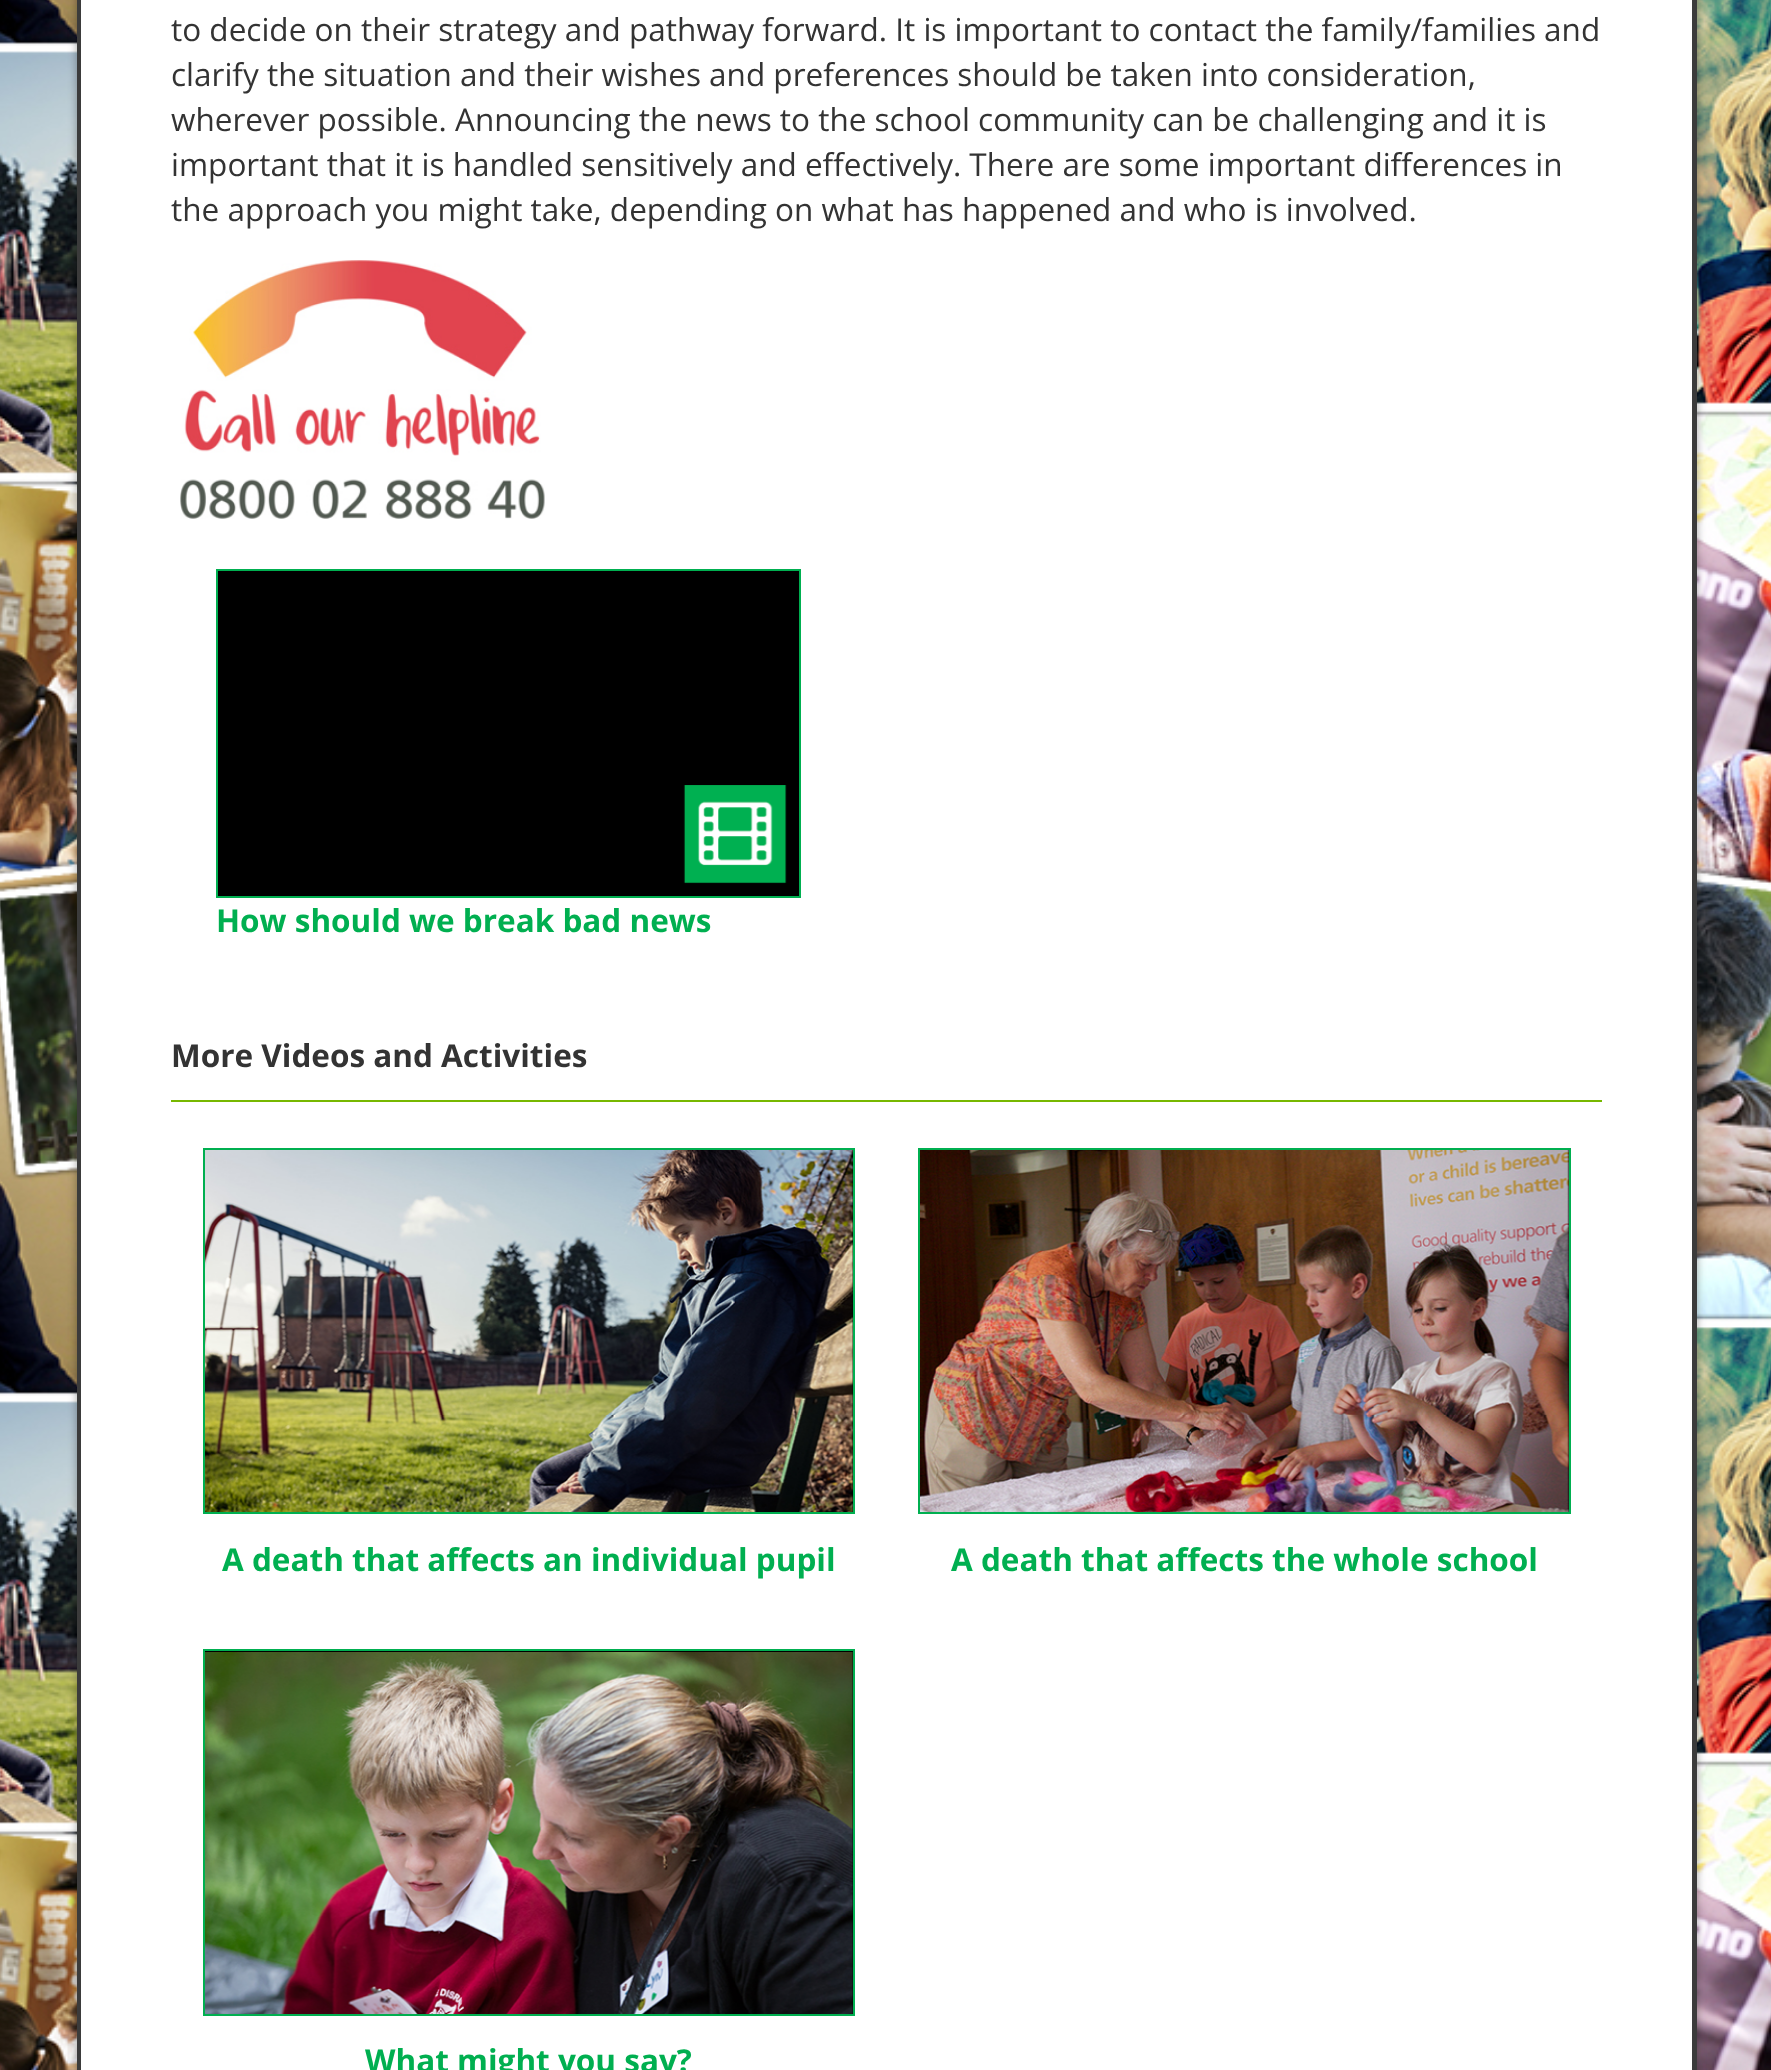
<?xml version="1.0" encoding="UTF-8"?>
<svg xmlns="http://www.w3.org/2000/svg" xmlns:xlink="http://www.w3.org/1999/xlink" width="1771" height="2070">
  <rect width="100%" height="100%" fill="#ffffff" />
  <image x="0" y="0" width="1771" height="2070" xlink:href="image1.png" />
  <rect x="77" y="-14" width="1620" height="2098" fill="#000000" fill-opacity="0.35" filter="blur(4.5px)" />
  <rect x="77" width="1620" height="2070" fill="#3b3b3b" />
  <rect x="81" width="1611" height="2070" fill="#ffffff" />
  <image x="180" y="260" width="365" height="259" xlink:href="image2.png" />
  <rect x="217" y="570" width="583" height="327" fill="#000000" stroke="#00af50" stroke-width="2" />
  <image x="683" y="785" width="104" height="99" xlink:href="image3.png" />
  <rect x="171" y="1100" width="1431" height="2" fill="#77b800" />
  <rect x="852" y="1150" width="1" height="362" fill="#000000" />
  <rect x="204" y="1149" width="650" height="364" fill="none" stroke="#00af50" stroke-width="2" />
  <image x="205" y="1150" width="648" height="362" xlink:href="image4.png" />
  <rect x="1567" y="1150" width="2" height="362" fill="#000000" />
  <rect x="919" y="1149" width="651" height="364" fill="none" stroke="#00af50" stroke-width="2" />
  <image x="920" y="1150" width="649" height="362" xlink:href="image5.png" />
  <rect x="204" y="1650" width="650" height="365" fill="#000000" stroke="#00af50" stroke-width="2" />
  <image x="205" y="1652" width="648" height="362" xlink:href="image6.png" />
  <text x="171" y="41" style="font-family: Open Sans; font-size: 31.5px; fill: #333333">to decide on their strategy and pathway forward. It is important to contact the family/families and</text>
  <text x="171" y="86" style="font-family: Open Sans; font-size: 31.5px; fill: #333333">clarify the situation and their wishes and preferences should be taken into consideration,</text>
  <text x="171" y="131" style="font-family: Open Sans; font-size: 31.5px; fill: #333333">wherever possible. Announcing the news to the school community can be challenging and it is</text>
  <text x="171" y="176" style="font-family: Open Sans; font-size: 31.5px; fill: #333333">important that it is handled sensitively and effectively. There are some important differences in</text>
  <text x="171" y="221" style="font-family: Open Sans; font-size: 31.5px; fill: #333333">the approach you might take, depending on what has happened and who is involved.</text>
  <text x="216" y="932" style="font-family: Open Sans; font-size: 31.5px; font-weight: bold; fill: #00af50">How should we break bad news</text>
  <text x="171" y="1067" style="font-family: Open Sans; font-size: 31.5px; font-weight: bold; fill: #333333">More Videos and Activities</text>
  <text x="222" y="1571" style="font-family: Open Sans; font-size: 31.5px; font-weight: bold; fill: #00af50">A death that affects an individual pupil</text>
  <text x="951" y="1571" style="font-family: Open Sans; font-size: 31.5px; font-weight: bold; fill: #00af50">A death that affects the whole school</text>
  <text x="365" y="2072" style="font-family: Open Sans; font-size: 31.5px; font-weight: bold; fill: #00af50">What might you say?</text>
</svg>
